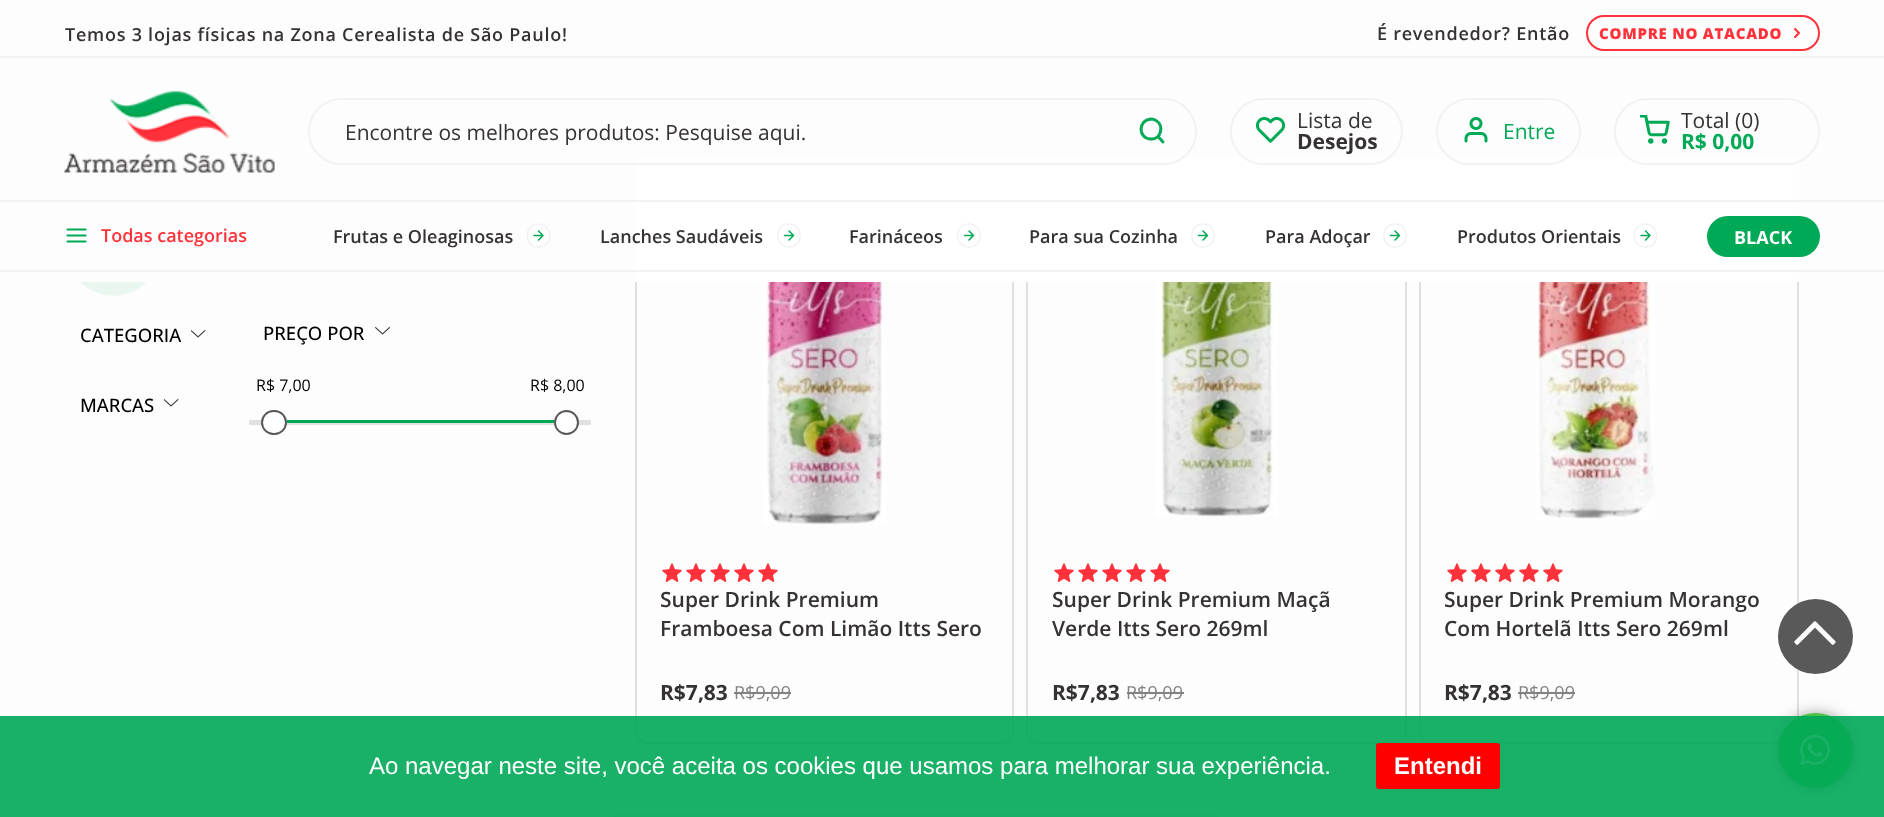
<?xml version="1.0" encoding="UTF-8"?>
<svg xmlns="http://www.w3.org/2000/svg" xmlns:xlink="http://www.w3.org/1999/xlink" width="1884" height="817">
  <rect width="100%" height="100%" fill="#fdfdfd" />
  <rect x="636" y="159" width="377" height="584" rx="11" fill="none" stroke="#e0e0e0" stroke-width="2" />
  <rect x="1027" y="159" width="379" height="584" rx="11" fill="none" stroke="#e0e0e0" stroke-width="2" />
  <rect x="1420" y="159" width="378" height="584" rx="11" fill="none" stroke="#e0e0e0" stroke-width="2" />
  <rect x="635" y="158" width="1164" height="124" fill="#ffffff" />
  <rect y="56" width="1884" height="2" fill="#f2f2f2" />
  <rect x="1587" y="16" width="232" height="34" rx="17" fill="none" stroke="#ff323b" stroke-width="2" />
  <path d="M 1795 37 l 4 -4 l -4 -4" fill="none" stroke="#ff323b" stroke-width="2.1" stroke-linecap="round" stroke-linejoin="round" />
  <image x="64" y="91" width="211" height="82" xlink:href="image1.png" />
  <rect x="309" y="99" width="887" height="65" rx="32.5" fill="none" stroke="#f2f2f2" stroke-width="2" />
  <path d="M 1151 139 c 10 0.5 13.5 -13.5 5 -18.5 c -1.5 -1 -3.5 -1.5 -5 -1.5 c -13.5 1 -13 20 0 20 z m 12 3 l -5 -5.5" fill="none" stroke="#00a956" stroke-width="3" stroke-linecap="round" stroke-linejoin="round" />
  <rect x="1231" y="99" width="171" height="65" rx="32.5" fill="none" stroke="#f2f2f2" stroke-width="2" />
  <image x="1256" y="117" width="30" height="26" xlink:href="image2.png" />
  <rect x="1437" y="99" width="143" height="65" rx="32.5" fill="none" stroke="#f2f2f2" stroke-width="2" />
  <image x="1464" y="117" width="24" height="26" xlink:href="image3.png" />
  <rect x="1615" y="99" width="204" height="65" rx="32.5" fill="none" stroke="#f2f2f2" stroke-width="2" />
  <image x="1640" y="115" width="30" height="29" xlink:href="image4.png" />
  <rect y="200" width="1884" height="2" fill="#f2f2f2" />
  <rect y="270" width="1884" height="2" fill="#f2f2f2" />
  <path d="M 67.5 235.5 h 18 m -18 -6 h 18 m -18 12 h 18" fill="none" stroke="#00a956" stroke-width="2.2" stroke-linecap="round" stroke-linejoin="round" />
  <path d="M 538.5 247 c 15 0 15 -22.5 0 -23 c -15 0 -15 23 0 23 z" fill="none" stroke="#f2f2f2" stroke-width="1.5" stroke-linecap="round" stroke-linejoin="round" />
  <path d="M 538.5 240 l 4.5 -4.5 l -4.5 -4.5 m -4.5 4.5 h 9" fill="none" stroke="#00a956" stroke-width="1.5" stroke-linecap="round" stroke-linejoin="round" />
  <path d="M 789 247 c 15 0 15 -22.5 0 -23 c -15 0 -15 23 0 23 z" fill="none" stroke="#f2f2f2" stroke-width="1.5" stroke-linecap="round" stroke-linejoin="round" />
  <path d="M 789 240 l 4.5 -4.5 l -4.5 -4.5 m -4.5 4.5 h 9" fill="none" stroke="#00a956" stroke-width="1.5" stroke-linecap="round" stroke-linejoin="round" />
  <path d="M 969 247 c 15 0 15 -22.5 0 -23 c -15 0 -15 23 0 23 z" fill="none" stroke="#f2f2f2" stroke-width="1.5" stroke-linecap="round" stroke-linejoin="round" />
  <path d="M 969 240 l 4.5 -4.5 l -4.5 -4.5 m -4.5 4.5 h 9" fill="none" stroke="#00a956" stroke-width="1.5" stroke-linecap="round" stroke-linejoin="round" />
  <path d="M 1203 247 c 15 0 15 -22.5 0 -23 c -15 0 -15 23 0 23 z" fill="none" stroke="#f2f2f2" stroke-width="1.5" stroke-linecap="round" stroke-linejoin="round" />
  <path d="M 1203 240 l 4.5 -4.5 l -4.5 -4.5 m -4.5 4.5 h 9" fill="none" stroke="#00a956" stroke-width="1.5" stroke-linecap="round" stroke-linejoin="round" />
  <path d="M 1395 247 c 15 0 15 -22.5 0 -23 c -15 0 -15 23 0 23 z" fill="none" stroke="#f2f2f2" stroke-width="1.5" stroke-linecap="round" stroke-linejoin="round" />
  <path d="M 1395 240 l 4.5 -4.5 l -4.5 -4.5 m -4.5 4.5 h 9" fill="none" stroke="#00a956" stroke-width="1.5" stroke-linecap="round" stroke-linejoin="round" />
  <path d="M 1645.5 247 c 15 0 15 -22.5 0 -23 c -15 0 -15 23 0 23 z" fill="none" stroke="#f2f2f2" stroke-width="1.5" stroke-linecap="round" stroke-linejoin="round" />
  <path d="M 1645.5 240 l 4.5 -4.5 l -4.5 -4.5 m -4.5 4.5 h 9" fill="none" stroke="#00a956" stroke-width="1.5" stroke-linecap="round" stroke-linejoin="round" />
  <rect x="1707" y="216" width="113" height="41" rx="20.5" fill="#00a956" />
  <image x="80" y="282" width="66" height="14" xlink:href="image5.png" />
  <image x="191" y="330" width="15" height="8" xlink:href="image6.png" />
  <image x="164" y="399" width="15" height="8" xlink:href="image6.png" />
  <image x="375" y="327" width="15" height="8" xlink:href="image7.png" />
  <rect x="249" y="420" width="342" height="5" fill="#e1e1e1" />
  <rect x="262" y="411" width="24" height="23" rx="11.5" fill="#ffffff" stroke="#595959" stroke-width="2" />
  <rect x="287" y="420" width="267" height="3" fill="#00a956" />
  <circle cx="566.5" cy="422.5" r="11.5" fill="#ffffff" stroke="#595959" stroke-width="2" />
  <image x="763" y="282" width="123" height="243" xlink:href="image8.png" />
  <image x="662" y="563" width="116" height="19" xlink:href="image9.png" />
  <rect x="734" y="692" width="57" height="2" fill="#828282" />
  <image x="1155" y="282" width="123" height="235" xlink:href="image10.png" />
  <image x="1054" y="563" width="116" height="19" xlink:href="image9.png" />
  <rect x="1127" y="692" width="57" height="2" fill="#828282" />
  <image x="1536" y="282" width="119" height="238" xlink:href="image11.png" />
  <image x="1447" y="563" width="116" height="19" xlink:href="image9.png" />
  <rect x="1518" y="692" width="57" height="2" fill="#828282" />
  <rect x="615" y="816" width="601" height="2" fill="none" stroke="#dddddd" stroke-width="2" />
  <circle cx="1815.5" cy="636.5" r="37.5" fill="#595959" />
  <image x="1794" y="621" width="42" height="24" xlink:href="image12.png" />
  <rect x="1782" y="717" width="69" height="69" rx="34.5" fill="#000000" fill-opacity="0.6" filter="blur(9px)" />
  <circle cx="1815.5" cy="750.5" r="37.5" fill="#4dc247" />
  <image x="1800" y="735" width="30" height="30" xlink:href="image13.png" />
  <rect y="716" width="1884" height="101" fill="#00a956" fill-opacity="0.9" />
  <rect x="1376" y="743" width="124" height="46" rx="3" fill="#ff0000" />
  <text x="65" y="41" style="font-family: Open Sans; font-size: 18px; font-weight: 600; letter-spacing: 0.75px; fill: #363233">Temos 3 lojas físicas na Zona Cerealista de São Paulo!</text>
  <text x="1377" y="40" style="font-family: Open Sans; font-size: 18px; font-weight: 600; letter-spacing: 0.75px; fill: #363233">É revendedor? Então</text>
  <text x="1599" y="39" style="font-family: Open Sans; font-size: 15px; font-weight: 800; letter-spacing: 0.75px; fill: #ff323b">COMPRE NO ATACADO</text>
  <text x="345" y="140" style="font-family: Open Sans; font-size: 21px; fill: #363233">Encontre os melhores produtos: Pesquise aqui.</text>
  <text x="1297" y="128" style="font-family: Open Sans; font-size: 21px; fill: #363233">Lista de</text>
  <text x="1297" y="149" style="font-family: Open Sans; font-size: 21px; font-weight: bold; fill: #363233">Desejos</text>
  <text x="1503" y="139" style="font-family: Open Sans; font-size: 21px; fill: #00a956">Entre</text>
  <text x="1681" y="128" style="font-family: Open Sans; font-size: 21px; fill: #363233">Total (0)</text>
  <text x="1681" y="149" style="font-family: Open Sans; font-size: 21px; font-weight: bold; fill: #00a956">R$ 0,00</text>
  <text x="101" y="242" style="font-family: Open Sans; font-size: 18px; font-weight: 600; fill: #ff323b">Todas categorias</text>
  <text x="333" y="243" style="font-family: Open Sans; font-size: 18px; font-weight: 600; fill: #363233">Frutas e Oleaginosas</text>
  <text x="600" y="243" style="font-family: Open Sans; font-size: 18px; font-weight: 600; fill: #363233">Lanches Saudáveis</text>
  <text x="849" y="243" style="font-family: Open Sans; font-size: 18px; font-weight: 600; fill: #363233">Farináceos</text>
  <text x="1029" y="243" style="font-family: Open Sans; font-size: 18px; font-weight: 600; fill: #363233">Para sua Cozinha</text>
  <text x="1265" y="243" style="font-family: Open Sans; font-size: 18px; font-weight: 600; fill: #363233">Para Adoçar</text>
  <text x="1457" y="243" style="font-family: Open Sans; font-size: 18px; font-weight: 600; fill: #363233">Produtos Orientais</text>
  <text x="1734" y="244" style="font-family: Open Sans; font-size: 18px; font-weight: bold; fill: #ffffff">BLACK</text>
  <text x="80" y="342" style="font-family: Open Sans; font-size: 18.5px; font-weight: 500; fill: #000000">CATEGORIA</text>
  <text x="80" y="412" style="font-family: Open Sans; font-size: 18.5px; font-weight: 500; fill: #000000">MARCAS</text>
  <text x="263" y="340" style="font-family: Open Sans; font-size: 18.5px; font-weight: 500; fill: #000000">PREÇO POR</text>
  <text x="256" y="391" style="font-family: Open Sans; font-size: 16px; fill: #000000">R$ 7,00</text>
  <text x="530" y="391" style="font-family: Open Sans; font-size: 16px; fill: #000000">R$ 8,00</text>
  <text x="660" y="607" style="font-family: Open Sans; font-size: 21px; font-weight: 600; fill: #363233">Super Drink Premium</text>
  <text x="660" y="636" style="font-family: Open Sans; font-size: 21px; font-weight: 600; fill: #363233">Framboesa Com Limão Itts Sero</text>
  <text x="660" y="700" style="font-family: Open Sans; font-size: 21px; font-weight: bold; fill: #363233">R$7,83</text>
  <text x="734" y="699" style="font-family: Open Sans; font-size: 18px; fill: #828282">R$9,09</text>
  <text x="1052" y="607" style="font-family: Open Sans; font-size: 21px; font-weight: 600; fill: #363233">Super Drink Premium Maçã</text>
  <text x="1052" y="636" style="font-family: Open Sans; font-size: 21px; font-weight: 600; fill: #363233">Verde Itts Sero 269ml</text>
  <text x="1052" y="700" style="font-family: Open Sans; font-size: 21px; font-weight: bold; fill: #363233">R$7,83</text>
  <text x="1126" y="699" style="font-family: Open Sans; font-size: 18px; fill: #828282">R$9,09</text>
  <text x="1444" y="607" style="font-family: Open Sans; font-size: 21px; font-weight: 600; fill: #363233">Super Drink Premium Morango</text>
  <text x="1444" y="636" style="font-family: Open Sans; font-size: 21px; font-weight: 600; fill: #363233">Com Hortelã Itts Sero 269ml</text>
  <text x="1444" y="700" style="font-family: Open Sans; font-size: 21px; font-weight: bold; fill: #363233">R$7,83</text>
  <text x="1518" y="699" style="font-family: Open Sans; font-size: 18px; fill: #828282">R$9,09</text>
  <text x="369" y="774" style="font-family: Liberation Sans; font-size: 24px; fill: #ffffff">Ao navegar neste site, você aceita os cookies que usamos para melhorar sua experiência.</text>
  <text x="1394" y="774" style="font-family: Liberation Sans; font-size: 24px; font-weight: bold; fill: #ffffff">Entendi</text>
</svg>
